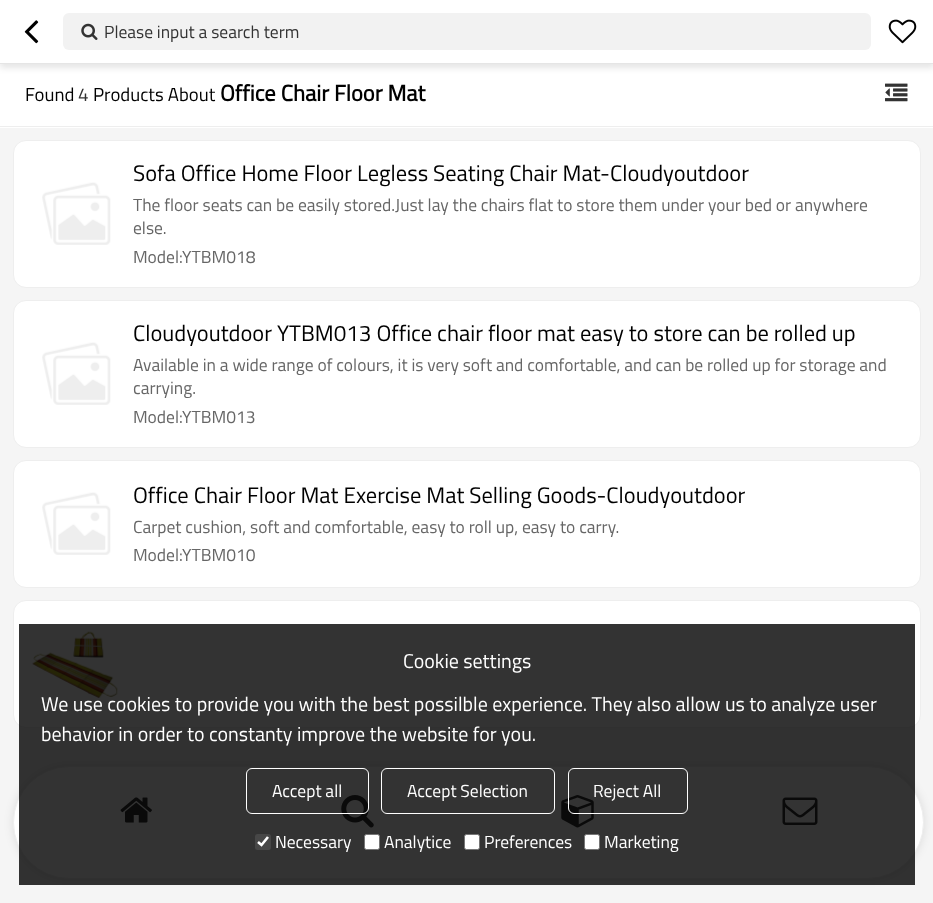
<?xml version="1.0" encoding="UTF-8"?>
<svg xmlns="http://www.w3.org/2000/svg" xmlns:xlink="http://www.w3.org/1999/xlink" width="933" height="903">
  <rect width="100%" height="100%" fill="#f5f5f5" />
  <rect y="64" width="933" height="64" fill="#ffffff" />
  <rect y="4" width="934" height="64" fill="#000000" fill-opacity="0.1" filter="blur(3px)" />
  <rect width="933" height="63" fill="#ffffff" />
  <rect y="63" width="933" height="1" fill="#e5e5e5" />
  <image x="24" y="20" width="15" height="24" xlink:href="image1.png" />
  <rect x="63" y="13" width="808" height="37" rx="6" fill="#f2f2f2" />
  <image x="81" y="23" width="17" height="17" xlink:href="image2.png" />
  <image x="888" y="19" width="29" height="25" xlink:href="image3.png" />
  <rect y="126" width="933" height="1" fill="#eeeeee" />
  <image x="885" y="83" width="23" height="19" xlink:href="image4.png" />
  <rect x="13.5" y="140.5" width="907" height="147" rx="12.5" fill="#ffffff" stroke="#eeeeee" />
  <image x="42" y="182" width="69" height="63" xlink:href="image5.png" />
  <rect x="13.5" y="300.5" width="907" height="147" rx="12.5" fill="#ffffff" stroke="#eeeeee" />
  <image x="42" y="342" width="69" height="63" xlink:href="image5.png" />
  <rect x="13.5" y="460.5" width="907" height="127" rx="12.5" fill="#ffffff" stroke="#eeeeee" />
  <image x="42" y="492" width="69" height="63" xlink:href="image5.png" />
  <rect x="13.5" y="600.5" width="907" height="127" rx="12.5" fill="#ffffff" stroke="#eeeeee" />
  <image x="32" y="631" width="86" height="67" xlink:href="image6.png" />
  <rect x="13" y="766" width="911" height="113" rx="56.5" fill="#000000" fill-opacity="0.1" filter="blur(5px)" />
  <rect x="13.5" y="766.5" width="910" height="112" rx="56" fill="#ffffff" stroke="#eeeeee" />
  <image x="120" y="797" width="32" height="26" xlink:href="image7.png" />
  <image x="341" y="795" width="33" height="33" xlink:href="image8.png" />
  <image x="561" y="795" width="33" height="33" xlink:href="image9.png" />
  <image x="782" y="797" width="36" height="28" xlink:href="image10.png" />
  <rect x="19" y="624" width="896" height="261" fill="#000000" fill-opacity="0.8" />
  <rect x="246.5" y="768.5" width="122" height="45" rx="5.5" fill="none" stroke="#ffffff" />
  <rect x="381.5" y="768.5" width="173" height="45" rx="5.5" fill="none" stroke="#ffffff" />
  <rect x="568.5" y="768.5" width="119" height="45" rx="5.5" fill="none" stroke="#ffffff" />
  <rect x="255" y="834" width="16" height="16" rx="2.5" fill="#474747" />
  <path d="M 258 842 l 3.5 3 l 6.5 -8" fill="none" stroke="#ffffff" stroke-width="2.6" />
  <rect x="364.5" y="834.5" width="15" height="15" rx="2" fill="#ffffff" stroke="#767676" />
  <rect x="464.5" y="834.5" width="15" height="15" rx="2" fill="#ffffff" stroke="#767676" />
  <rect x="584.5" y="834.5" width="15" height="15" rx="2" fill="#ffffff" stroke="#767676" />
  <text x="104" y="38" style="font-family: Titillium Web; font-size: 17.5px; fill: #333333">Please input a search term</text>
  <text x="25" y="101" style="font-family: Titillium Web; font-size: 18.75px; fill: #000000">Found</text>
  <text x="78" y="101" style="font-family: Titillium Web; font-size: 18.75px; fill: #333333">4</text>
  <text x="93" y="101" style="font-family: Titillium Web; font-size: 18.75px; fill: #000000">Products About</text>
  <text x="220" y="101" style="font-family: Titillium Web; font-size: 22.5px; font-weight: bold; fill: #000000">Office Chair Floor Mat</text>
  <text x="133" y="181" style="font-family: Titillium Web; font-size: 22.5px; fill: #000000">Sofa Office Home Floor Legless Seating Chair Mat-Cloudyoutdoor</text>
  <text x="133" y="211" style="font-family: Titillium Web; font-size: 17.5px; fill: #666666">The floor seats can be easily stored.Just lay the chairs flat to store them under your bed or anywhere</text>
  <text x="133" y="234" style="font-family: Titillium Web; font-size: 17.5px; fill: #666666">else.</text>
  <text x="133" y="263" style="font-family: Titillium Web; font-size: 17.5px; fill: #666666">Model:YTBM018</text>
  <text x="133" y="341" style="font-family: Titillium Web; font-size: 22.5px; fill: #000000">Cloudyoutdoor YTBM013 Office chair floor mat easy to store can be rolled up</text>
  <text x="133" y="371" style="font-family: Titillium Web; font-size: 17.5px; fill: #666666">Available in a wide range of colours, it is very soft and comfortable, and can be rolled up for storage and</text>
  <text x="133" y="394" style="font-family: Titillium Web; font-size: 17.5px; fill: #666666">carrying.</text>
  <text x="133" y="423" style="font-family: Titillium Web; font-size: 17.5px; fill: #666666">Model:YTBM013</text>
  <text x="133" y="503" style="font-family: Titillium Web; font-size: 22.5px; fill: #000000">Office Chair Floor Mat Exercise Mat Selling Goods-Cloudyoutdoor</text>
  <text x="133" y="533" style="font-family: Titillium Web; font-size: 17.5px; fill: #666666">Carpet cushion, soft and comfortable, easy to roll up, easy to carry.</text>
  <text x="133" y="561" style="font-family: Titillium Web; font-size: 17.5px; fill: #666666">Model:YTBM010</text>
  <text x="403" y="668" style="font-family: Titillium Web; font-size: 20px; fill: #ffffff">Cookie settings</text>
  <text x="41" y="711" style="font-family: Titillium Web; font-size: 20px; fill: #ffffff">We use cookies to provide you with the best possilble experience. They also allow us to analyze user</text>
  <text x="41" y="741" style="font-family: Titillium Web; font-size: 20px; fill: #ffffff">behavior in order to constanty improve the website for you.</text>
  <text x="272" y="797" style="font-family: Titillium Web; font-size: 17.5px; fill: #ffffff">Accept all</text>
  <text x="407" y="797" style="font-family: Titillium Web; font-size: 17.5px; fill: #ffffff">Accept Selection</text>
  <text x="593" y="797" style="font-family: Titillium Web; font-size: 17.5px; fill: #ffffff">Reject All</text>
  <text x="275" y="848" style="font-family: Titillium Web; font-size: 17.5px; fill: #ffffff">Necessary</text>
  <text x="384" y="848" style="font-family: Titillium Web; font-size: 17.5px; fill: #ffffff">Analytice</text>
  <text x="484" y="848" style="font-family: Titillium Web; font-size: 17.5px; fill: #ffffff">Preferences</text>
  <text x="604" y="848" style="font-family: Titillium Web; font-size: 17.5px; fill: #ffffff">Marketing</text>
</svg>
